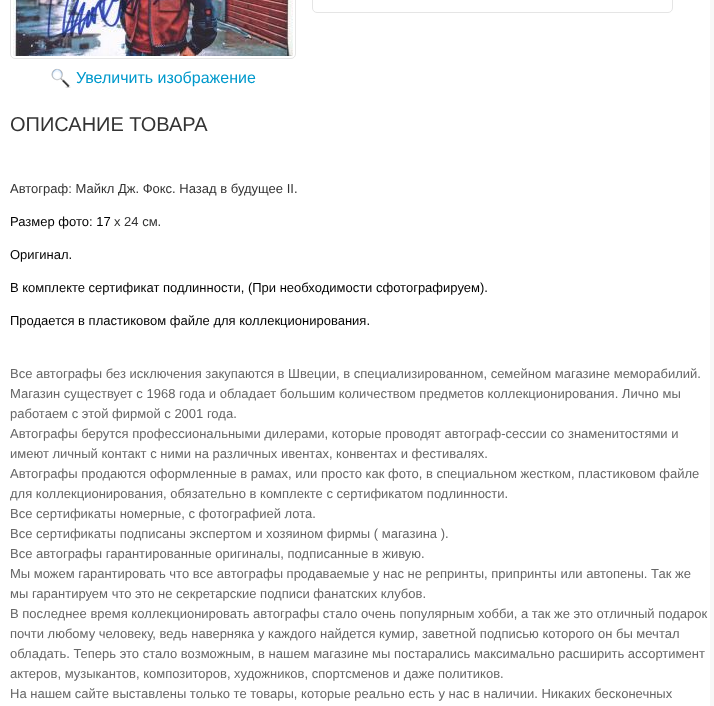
<?xml version="1.0" encoding="UTF-8"?>
<svg xmlns="http://www.w3.org/2000/svg" xmlns:xlink="http://www.w3.org/1999/xlink" width="714" height="706">
  <rect width="100%" height="100%" fill="#ffffff" />
  <rect x="710" width="4" height="706" fill="#f8f8f8" />
  <rect x="312.5" y="-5.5" width="360" height="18" rx="4.5" fill="none" stroke="#e5e5e5" />
  <rect x="10.5" y="-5.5" width="285" height="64" rx="4.5" fill="none" stroke="#e5e5e5" />
  <image x="13" y="0" width="280" height="56" xlink:href="image1.png" />
  <image x="51" y="68" width="20" height="20" xlink:href="image2.png" />
  <text x="76" y="83" style="font-family: Liberation Sans; font-size: 16px; fill: #0099cc">Увеличить изображение</text>
  <text x="10" y="131" style="font-family: Liberation Sans; font-size: 20px; fill: #333333">ОПИСАНИЕ ТОВАРА</text>
  <text x="10" y="193" style="font-family: Liberation Sans; font-size: 13px; fill: #333333">Автограф: Майкл Дж. Фокс. Назад в будущее II.</text>
  <text x="10" y="226" style="font-family: Liberation Sans; font-size: 13px; fill: #000000">Размер фото: 17</text>
  <text x="114" y="226" style="font-family: Liberation Sans; font-size: 13px; fill: #333333">х 24 см.</text>
  <text x="10" y="259" style="font-family: Liberation Sans; font-size: 13px; fill: #000000">Оригинал.</text>
  <text x="10" y="292" style="font-family: Liberation Sans; font-size: 13px; fill: #000000">В комплекте сертификат подлинности, (При необходимости сфотографируем).</text>
  <text x="10" y="325" style="font-family: Liberation Sans; font-size: 13px; fill: #000000">Продается в пластиковом файле для коллекционирования.</text>
  <text x="10" y="378" style="font-family: Liberation Sans; font-size: 13px; fill: #666666">Все автографы без исключения закупаются в Швеции, в специализированном, семейном магазине меморабилий.</text>
  <text x="10" y="398" style="font-family: Liberation Sans; font-size: 13px; fill: #666666">Магазин существует с 1968 года и обладает большим количеством предметов коллекционирования. Лично мы</text>
  <text x="10" y="418" style="font-family: Liberation Sans; font-size: 13px; fill: #666666">работаем с этой фирмой с 2001 года.</text>
  <text x="10" y="438" style="font-family: Liberation Sans; font-size: 13px; fill: #666666">Автографы берутся профессиональными дилерами, которые проводят автограф-сессии со знаменитостями и</text>
  <text x="10" y="458" style="font-family: Liberation Sans; font-size: 13px; fill: #666666">имеют личный контакт с ними на различных ивентах, конвентах и фестивалях.</text>
  <text x="10" y="478" style="font-family: Liberation Sans; font-size: 13px; fill: #666666">Автографы продаются оформленные в рамах, или просто как фото, в специальном жестком, пластиковом файле</text>
  <text x="10" y="498" style="font-family: Liberation Sans; font-size: 13px; fill: #666666">для коллекционирования, обязательно в комплекте с сертификатом подлинности.</text>
  <text x="10" y="518" style="font-family: Liberation Sans; font-size: 13px; fill: #666666">Все сертификаты номерные, с фотографией лота.</text>
  <text x="10" y="538" style="font-family: Liberation Sans; font-size: 13px; fill: #666666">Все сертификаты подписаны экспертом и хозяином фирмы ( магазина ).</text>
  <text x="10" y="558" style="font-family: Liberation Sans; font-size: 13px; fill: #666666">Все автографы гарантированные оригиналы, подписанные в живую.</text>
  <text x="10" y="578" style="font-family: Liberation Sans; font-size: 13px; fill: #666666">Мы можем гарантировать что все автографы продаваемые у нас не репринты, припринты или автопены. Так же</text>
  <text x="10" y="598" style="font-family: Liberation Sans; font-size: 13px; fill: #666666">мы гарантируем что это не секретарские подписи фанатских клубов.</text>
  <text x="10" y="618" style="font-family: Liberation Sans; font-size: 13px; fill: #666666">В последнее время коллекционировать автографы стало очень популярным хобби, а так же это отличный подарок</text>
  <text x="10" y="638" style="font-family: Liberation Sans; font-size: 13px; fill: #666666">почти любому человеку, ведь наверняка у каждого найдется кумир, заветной подписью которого он бы мечтал</text>
  <text x="10" y="658" style="font-family: Liberation Sans; font-size: 13px; fill: #666666">обладать. Теперь это стало возможным, в нашем магазине мы постарались максимально расширить ассортимент</text>
  <text x="10" y="678" style="font-family: Liberation Sans; font-size: 13px; fill: #666666">актеров, музыкантов, композиторов, художников, спортсменов и даже политиков.</text>
  <text x="10" y="698" style="font-family: Liberation Sans; font-size: 13px; fill: #666666">На нашем сайте выставлены только те товары, которые реально есть у нас в наличии. Никаких бесконечных</text>
</svg>
